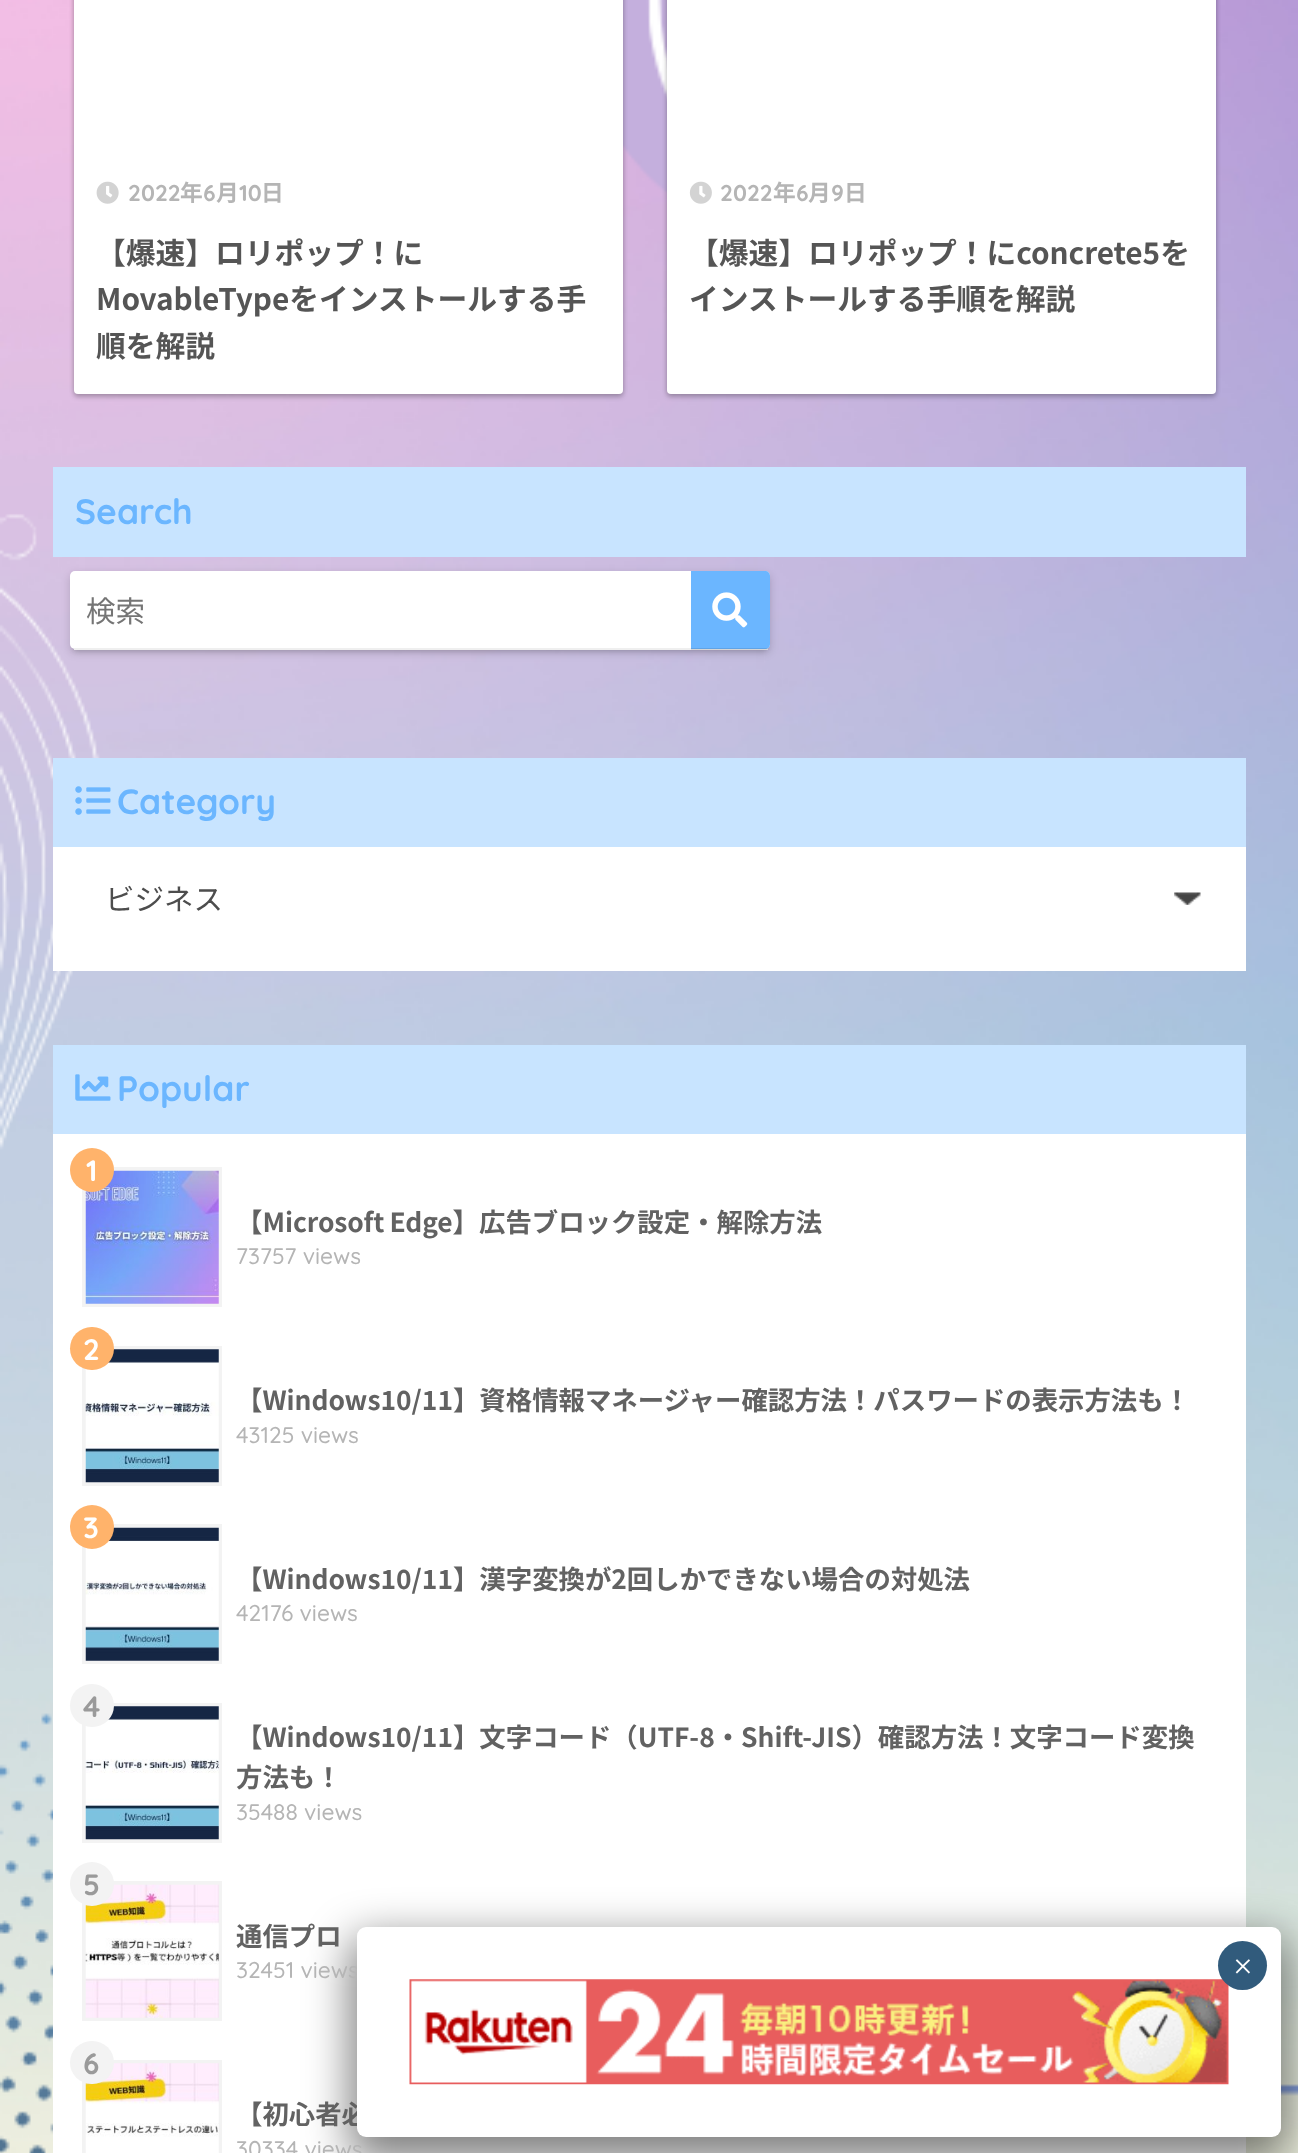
<?xml version="1.0" encoding="UTF-8"?>
<svg xmlns="http://www.w3.org/2000/svg" xmlns:xlink="http://www.w3.org/1999/xlink" width="1298" height="2153">
  <rect width="100%" height="100%" fill="#ffffff" />
  <image x="0" y="0" width="1298" height="2153" xlink:href="image1.png" />
  <rect x="74" y="-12" width="549" height="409" rx="4" fill="#000000" fill-opacity="0.22" filter="blur(2.5px)" />
  <rect x="74" y="-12" width="549" height="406" rx="4" fill="#000000" fill-opacity="0.12" filter="blur(2.5px)" />
  <rect x="74" y="-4" width="549" height="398" rx="4" fill="#ffffff" />
  <image x="96" y="181" width="23" height="23" xlink:href="image2.png" />
  <rect x="667" y="-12" width="549" height="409" rx="4" fill="#000000" fill-opacity="0.22" filter="blur(2.5px)" />
  <rect x="667" y="-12" width="549" height="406" rx="4" fill="#000000" fill-opacity="0.12" filter="blur(2.5px)" />
  <rect x="667" y="-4" width="549" height="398" rx="4" fill="#ffffff" />
  <image x="689" y="181" width="23" height="23" xlink:href="image3.png" />
  <rect x="53" y="467" width="1193" height="90" fill="#c8e4ff" />
  <rect x="74" y="579" width="693" height="72" rx="2" fill="#000000" fill-opacity="0.15" filter="blur(2.5px)" />
  <rect x="70" y="574" width="700" height="79" rx="5" fill="#000000" fill-opacity="0.15" filter="blur(4.5px)" />
  <rect x="70" y="571" width="700" height="78" rx="5" fill="#ffffff" />
  <rect x="74" y="648" width="694" height="2" fill="#efefef" />
  <path d="M 691 571 h 74 c 3 0 5 2 5 5 v 68 c 0 3 -2 5 -5 5 h -74 z" fill="#6bb6ff" />
  <rect x="691" y="648" width="77" height="2" fill="#000000" fill-opacity="0.1" />
  <image x="712" y="592" width="36" height="36" xlink:href="image4.png" />
  <rect x="53" y="847" width="1193" height="124" fill="#ffffff" />
  <rect x="53" y="758" width="1193" height="89" fill="#c8e4ff" />
  <image x="75" y="786" width="36" height="29" xlink:href="image5.png" />
  <image x="1174" y="892" width="27" height="13" xlink:href="image6.png" />
  <rect x="53" y="1134" width="1193" height="1019" fill="#ffffff" />
  <rect x="53" y="1045" width="1193" height="89" fill="#c8e4ff" />
  <image x="75" y="1074" width="36" height="27" xlink:href="image7.png" />
  <rect x="84" y="1169" width="136" height="136" fill="none" stroke="#f3f3f3" stroke-width="4" />
  <image x="85" y="1170" width="134" height="134" xlink:href="image8.png" />
  <circle cx="92" cy="1170" r="22" fill="#ffb36b" />
  <rect x="84" y="1348" width="136" height="136" fill="none" stroke="#f3f3f3" stroke-width="4" />
  <image x="85" y="1349" width="134" height="134" xlink:href="image9.png" />
  <rect x="70" y="1327" width="44" height="43" rx="21.5" fill="#ffb36b" />
  <rect x="84" y="1526" width="136" height="136" fill="none" stroke="#f3f3f3" stroke-width="4" />
  <image x="85" y="1527" width="134" height="134" xlink:href="image10.png" />
  <circle cx="92" cy="1527" r="22" fill="#ffb36b" />
  <rect x="84" y="1705" width="136" height="136" fill="none" stroke="#f3f3f3" stroke-width="4" />
  <image x="85" y="1706" width="134" height="134" xlink:href="image11.png" />
  <rect x="70" y="1684" width="44" height="43" rx="21.5" fill="#f3f3f3" />
  <rect x="84" y="1883" width="136" height="136" fill="none" stroke="#f3f3f3" stroke-width="4" />
  <image x="85" y="1884" width="134" height="134" xlink:href="image12.png" />
  <circle cx="92" cy="1884" r="22" fill="#f3f3f3" />
  <rect x="84" y="2062" width="136" height="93" fill="none" stroke="#f3f3f3" stroke-width="4" />
  <image x="85" y="2063" width="134" height="90" xlink:href="image13.png" />
  <rect x="70" y="2041" width="44" height="43" rx="21.5" fill="#f3f3f3" />
  <rect x="350" y="1937" width="938" height="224" rx="16" fill="#020202" fill-opacity="0.5" filter="blur(22px)" />
  <text x="128" y="201" style="font-family: Quicksand; font-size: 22.75px; font-weight: bold; fill: #b5b5b5">2022</text>
  <text x="180" y="201" style="font-family: Noto Sans JP; font-size: 22.75px; font-weight: bold; fill: #b5b5b5">年</text>
  <text x="203" y="201" style="font-family: Quicksand; font-size: 22.75px; font-weight: bold; fill: #b5b5b5">6</text>
  <text x="216" y="201" style="font-family: Noto Sans JP; font-size: 22.75px; font-weight: bold; fill: #b5b5b5">月</text>
  <text x="239" y="201" style="font-family: Quicksand; font-size: 22.75px; font-weight: bold; fill: #b5b5b5">10</text>
  <text x="261" y="201" style="font-family: Noto Sans JP; font-size: 22.75px; font-weight: bold; fill: #b5b5b5">日</text>
  <text x="96" y="264" style="font-family: Noto Sans JP; font-size: 29.75px; font-weight: bold; fill: #555555">【爆速】ロリポップ！に</text>
  <text x="96" y="310" style="font-family: Noto Sans JP; font-size: 29.75px; font-weight: bold; fill: #555555">MovableTypeをインストールする手</text>
  <text x="96" y="357" style="font-family: Noto Sans JP; font-size: 29.75px; font-weight: bold; fill: #555555">順を解説</text>
  <text x="720" y="201" style="font-family: Quicksand; font-size: 22.75px; font-weight: bold; fill: #b5b5b5">2022</text>
  <text x="773" y="201" style="font-family: Noto Sans JP; font-size: 22.75px; font-weight: bold; fill: #b5b5b5">年</text>
  <text x="796" y="201" style="font-family: Quicksand; font-size: 22.75px; font-weight: bold; fill: #b5b5b5">6</text>
  <text x="808" y="201" style="font-family: Noto Sans JP; font-size: 22.75px; font-weight: bold; fill: #b5b5b5">月</text>
  <text x="831" y="201" style="font-family: Quicksand; font-size: 22.75px; font-weight: bold; fill: #b5b5b5">9</text>
  <text x="844" y="201" style="font-family: Noto Sans JP; font-size: 22.75px; font-weight: bold; fill: #b5b5b5">日</text>
  <text x="689" y="264" style="font-family: Noto Sans JP; font-size: 29.75px; font-weight: bold; fill: #555555">【爆速】ロリポップ！にconcrete5を</text>
  <text x="689" y="310" style="font-family: Noto Sans JP; font-size: 29.75px; font-weight: bold; fill: #555555">インストールする手順を解説</text>
  <text x="75" y="524" style="font-family: Quicksand; font-size: 35.25px; font-weight: bold; fill: #6bb6ff">Search</text>
  <text x="86" y="622" style="font-family: Noto Sans JP; font-size: 29.5px; fill: #757575">検索</text>
  <text x="117" y="814" style="font-family: Quicksand; font-size: 35.25px; font-weight: bold; fill: #6bb6ff">Category</text>
  <text x="105" y="910" style="font-family: Noto Sans JP; font-size: 29.5px; fill: #4d4d4d">ビジネス</text>
  <text x="117" y="1101" style="font-family: Quicksand; font-size: 35.25px; font-weight: bold; fill: #6bb6ff">Popular</text>
  <text x="86" y="1181" style="font-family: Quicksand; font-size: 29.5px; font-weight: bold; fill: #ffffff">1</text>
  <text x="236" y="1232" word-spacing="-1" style="font-family: Noto Sans JP; font-size: 26.4px; font-weight: bold; fill: #626262">【Microsoft Edge】広告ブロック設定・解除方法</text>
  <text x="236" y="1264" style="font-family: Quicksand; font-size: 22.75px; font-weight: 500; fill: #b5b5b5">73757 views</text>
  <text x="83" y="1360" style="font-family: Quicksand; font-size: 29.5px; font-weight: bold; fill: #ffffff">2</text>
  <text x="236" y="1410" style="font-family: Noto Sans JP; font-size: 26.4px; font-weight: bold; fill: #626262">【Windows10/11】資格情報マネージャー確認方法！パスワードの表示方法も！</text>
  <text x="236" y="1443" style="font-family: Quicksand; font-size: 22.75px; font-weight: 500; fill: #b5b5b5">43125 views</text>
  <text x="83" y="1538" style="font-family: Quicksand; font-size: 29.5px; font-weight: bold; fill: #ffffff">3</text>
  <text x="236" y="1589" style="font-family: Noto Sans JP; font-size: 26.4px; font-weight: bold; fill: #626262">【Windows10/11】漢字変換が2回しかできない場合の対処法</text>
  <text x="236" y="1621" style="font-family: Quicksand; font-size: 22.75px; font-weight: 500; fill: #b5b5b5">42176 views</text>
  <text x="83" y="1717" style="font-family: Quicksand; font-size: 29.5px; font-weight: bold; fill: #9a9a9a">4</text>
  <text x="236" y="1747" style="font-family: Noto Sans JP; font-size: 26.4px; font-weight: bold; fill: #626262">【Windows10/11】文字コード（UTF-8・Shift-JIS）確認方法！文字コード変換</text>
  <text x="236" y="1787" style="font-family: Noto Sans JP; font-size: 26.4px; font-weight: bold; fill: #626262">方法も！</text>
  <text x="236" y="1820" style="font-family: Quicksand; font-size: 22.75px; font-weight: 500; fill: #b5b5b5">35488 views</text>
  <text x="83" y="1895" style="font-family: Quicksand; font-size: 29.5px; font-weight: bold; fill: #9a9a9a">5</text>
  <text x="236" y="1946" style="font-family: Noto Sans JP; font-size: 26.4px; font-weight: bold; fill: #626262">通信プロ</text>
  <text x="236" y="1978" style="font-family: Quicksand; font-size: 22.75px; font-weight: 500; fill: #b5b5b5">32451 views</text>
  <text x="83" y="2074" style="font-family: Quicksand; font-size: 29.5px; font-weight: bold; fill: #9a9a9a">6</text>
  <text x="236" y="2124" style="font-family: Noto Sans JP; font-size: 26.4px; font-weight: bold; fill: #626262">【初心者必</text>
  <text x="236" y="2157" style="font-family: Quicksand; font-size: 22.75px; font-weight: 500; fill: #b5b5b5">30334 views</text>
  <rect x="357" y="1927" width="924" height="210" rx="9" fill="#ffffff" />
  <image x="409" y="1979" width="820" height="106" xlink:href="image14.png" />
  <circle cx="1242.5" cy="1965.5" r="24.5" fill="#315b7c" />
  <text x="1233" y="1978" style="font-family: Liberation Serif; font-size: 35px; fill: #ffffff">×</text>
</svg>
